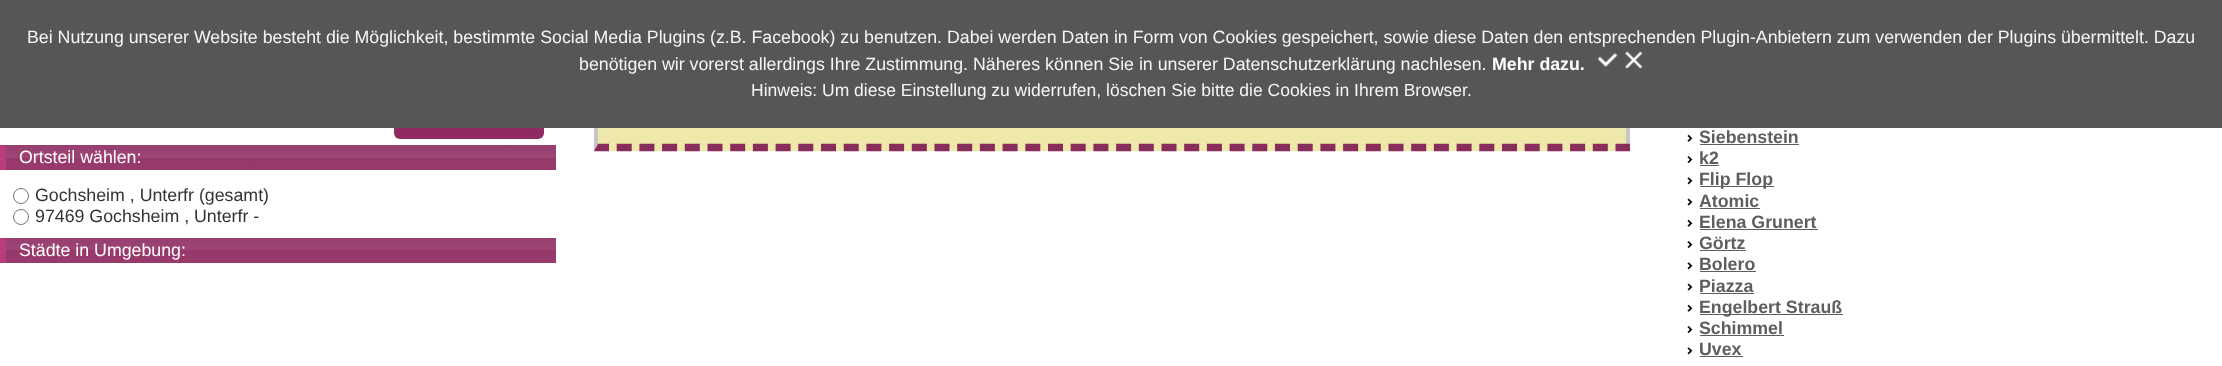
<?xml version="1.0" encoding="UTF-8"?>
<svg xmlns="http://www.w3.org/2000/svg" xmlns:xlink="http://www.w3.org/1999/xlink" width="2222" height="366">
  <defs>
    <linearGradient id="g1" gradientUnits="userSpaceOnUse" x1="469" y1="108" x2="469" y2="139"><stop offset="0" stop-color="#a03e74" /><stop offset="0.5" stop-color="#9b4573" /><stop offset="0.5" stop-color="#8f2b60" /><stop offset="1" stop-color="#8f2b60" /></linearGradient>
    <linearGradient id="g2" gradientUnits="userSpaceOnUse" x1="281" y1="145" x2="281" y2="170"><stop offset="0" stop-color="#963f6f" /><stop offset="0.5" stop-color="#9d4575" /><stop offset="0.51" stop-color="#96386a" /><stop offset="1" stop-color="#983b6c" /></linearGradient>
    <linearGradient id="g3" gradientUnits="userSpaceOnUse" x1="281" y1="237" x2="281" y2="263"><stop offset="0" stop-color="#963f6f" /><stop offset="0.5" stop-color="#9d4575" /><stop offset="0.51" stop-color="#96386a" /><stop offset="1" stop-color="#983b6c" /></linearGradient>
  </defs>
  <rect width="100%" height="100%" fill="#ffffff" />
  <path d="M 1630 -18 v 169 l -4 -7 v -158 z" fill="#c6c6c6" />
  <rect x="598" y="128" width="1028" height="23" fill="#eee8aa" />
  <path d="M 594 147.5 h 1036" fill="none" stroke="#882c5b" stroke-width="7.5" stroke-dasharray="15 7.7" />
  <path d="M 594 151 v -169 l 4 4 v 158 z" fill="#c6c6c6" />
  <rect x="394" y="108" width="150" height="31" rx="6" fill="url(#g1)" />
  <rect width="2222" height="128" fill="#545658" />
  <image x="1597" y="52" width="21" height="15" xlink:href="image1.png" />
  <image x="1625" y="51" width="18" height="18" xlink:href="image2.png" />
  <rect x="6" y="145" width="550" height="25" fill="url(#g2)" />
  <rect y="145" width="6" height="25" fill="#b73d7c" />
  <circle cx="21" cy="196" r="7.5" fill="none" stroke="#767676" />
  <circle cx="21" cy="217" r="7.5" fill="none" stroke="#767676" />
  <rect x="6" y="238" width="550" height="25" fill="url(#g3)" />
  <rect y="238" width="6" height="25" fill="#b73d7c" />
  <image x="1687" y="134" width="6" height="8" xlink:href="image3.png" />
  <rect x="1700" y="144" width="99" height="1" fill="#5e5e5e" />
  <image x="1687" y="156" width="6" height="8" xlink:href="image4.png" />
  <rect x="1700" y="165" width="19" height="1" fill="#5e5e5e" />
  <image x="1687" y="177" width="6" height="8" xlink:href="image5.png" />
  <rect x="1700" y="186" width="74" height="1" fill="#5e5e5e" />
  <image x="1687" y="198" width="6" height="8" xlink:href="image6.png" />
  <rect x="1700" y="208" width="60" height="1" fill="#5e5e5e" />
  <image x="1687" y="219" width="6" height="8" xlink:href="image3.png" />
  <rect x="1700" y="229" width="118" height="1" fill="#5e5e5e" />
  <image x="1687" y="241" width="6" height="8" xlink:href="image4.png" />
  <rect x="1700" y="250" width="46" height="1" fill="#5e5e5e" />
  <image x="1687" y="262" width="6" height="8" xlink:href="image5.png" />
  <rect x="1700" y="271" width="56" height="1" fill="#5e5e5e" />
  <image x="1687" y="283" width="6" height="8" xlink:href="image6.png" />
  <rect x="1700" y="293" width="54" height="1" fill="#5e5e5e" />
  <image x="1687" y="304" width="6" height="8" xlink:href="image3.png" />
  <rect x="1700" y="314" width="143" height="1" fill="#5e5e5e" />
  <image x="1687" y="326" width="6" height="8" xlink:href="image4.png" />
  <rect x="1700" y="335" width="84" height="1" fill="#5e5e5e" />
  <image x="1687" y="347" width="6" height="8" xlink:href="image5.png" />
  <rect x="1700" y="356" width="43" height="1" fill="#5e5e5e" />
  <text x="27" y="43" style="font-family: Liberation Sans; font-size: 17.78px; fill: #f5f5f5">Bei Nutzung unserer Website besteht die Möglichkeit, bestimmte Social Media Plugins (z.B. Facebook) zu benutzen. Dabei werden Daten in Form von Cookies gespeichert, sowie diese Daten den entsprechenden Plugin-Anbietern zum verwenden der Plugins übermittelt. Dazu</text>
  <text x="579" y="70" style="font-family: Liberation Sans; font-size: 17.78px; fill: #f5f5f5">benötigen wir vorerst allerdings Ihre Zustimmung. Näheres können Sie in unserer Datenschutzerklärung nachlesen.</text>
  <text x="1492" y="70" style="font-family: Liberation Sans; font-size: 17.78px; font-weight: bold; fill: #ffffff">Mehr dazu.</text>
  <text x="751" y="96" style="font-family: Liberation Sans; font-size: 17.5px; fill: #f5f5f5">Hinweis: Um diese Einstellung zu widerrufen, löschen Sie bitte die Cookies in Ihrem Browser.</text>
  <text x="19" y="163" style="font-family: Liberation Sans; font-size: 17.78px; fill: #ffffff">Ortsteil wählen:</text>
  <text x="35" y="201" style="font-family: Liberation Sans; font-size: 17.78px; fill: #333333">Gochsheim , Unterfr (gesamt)</text>
  <text x="35" y="222" style="font-family: Liberation Sans; font-size: 17.78px; fill: #333333">97469 Gochsheim , Unterfr -</text>
  <text x="19" y="256" style="font-family: Liberation Sans; font-size: 17.78px; fill: #ffffff">Städte in Umgebung:</text>
  <text x="1699" y="143" style="font-family: Liberation Sans; font-size: 17.78px; font-weight: bold; fill: #5e5e5e">Siebenstein</text>
  <text x="1699" y="164" style="font-family: Liberation Sans; font-size: 17.78px; font-weight: bold; fill: #5e5e5e">k2</text>
  <text x="1699" y="185" style="font-family: Liberation Sans; font-size: 17.78px; font-weight: bold; fill: #5e5e5e">Flip Flop</text>
  <text x="1699" y="207" style="font-family: Liberation Sans; font-size: 17.78px; font-weight: bold; fill: #5e5e5e">Atomic</text>
  <text x="1699" y="228" style="font-family: Liberation Sans; font-size: 17.78px; font-weight: bold; fill: #5e5e5e">Elena Grunert</text>
  <text x="1699" y="249" style="font-family: Liberation Sans; font-size: 17.78px; font-weight: bold; fill: #5e5e5e">Görtz</text>
  <text x="1699" y="270" style="font-family: Liberation Sans; font-size: 17.78px; font-weight: bold; fill: #5e5e5e">Bolero</text>
  <text x="1699" y="292" style="font-family: Liberation Sans; font-size: 17.78px; font-weight: bold; fill: #5e5e5e">Piazza</text>
  <text x="1699" y="313" style="font-family: Liberation Sans; font-size: 17.78px; font-weight: bold; fill: #5e5e5e">Engelbert Strauß</text>
  <text x="1699" y="334" style="font-family: Liberation Sans; font-size: 17.78px; font-weight: bold; fill: #5e5e5e">Schimmel</text>
  <text x="1699" y="355" style="font-family: Liberation Sans; font-size: 17.78px; font-weight: bold; fill: #5e5e5e">Uvex</text>
</svg>
